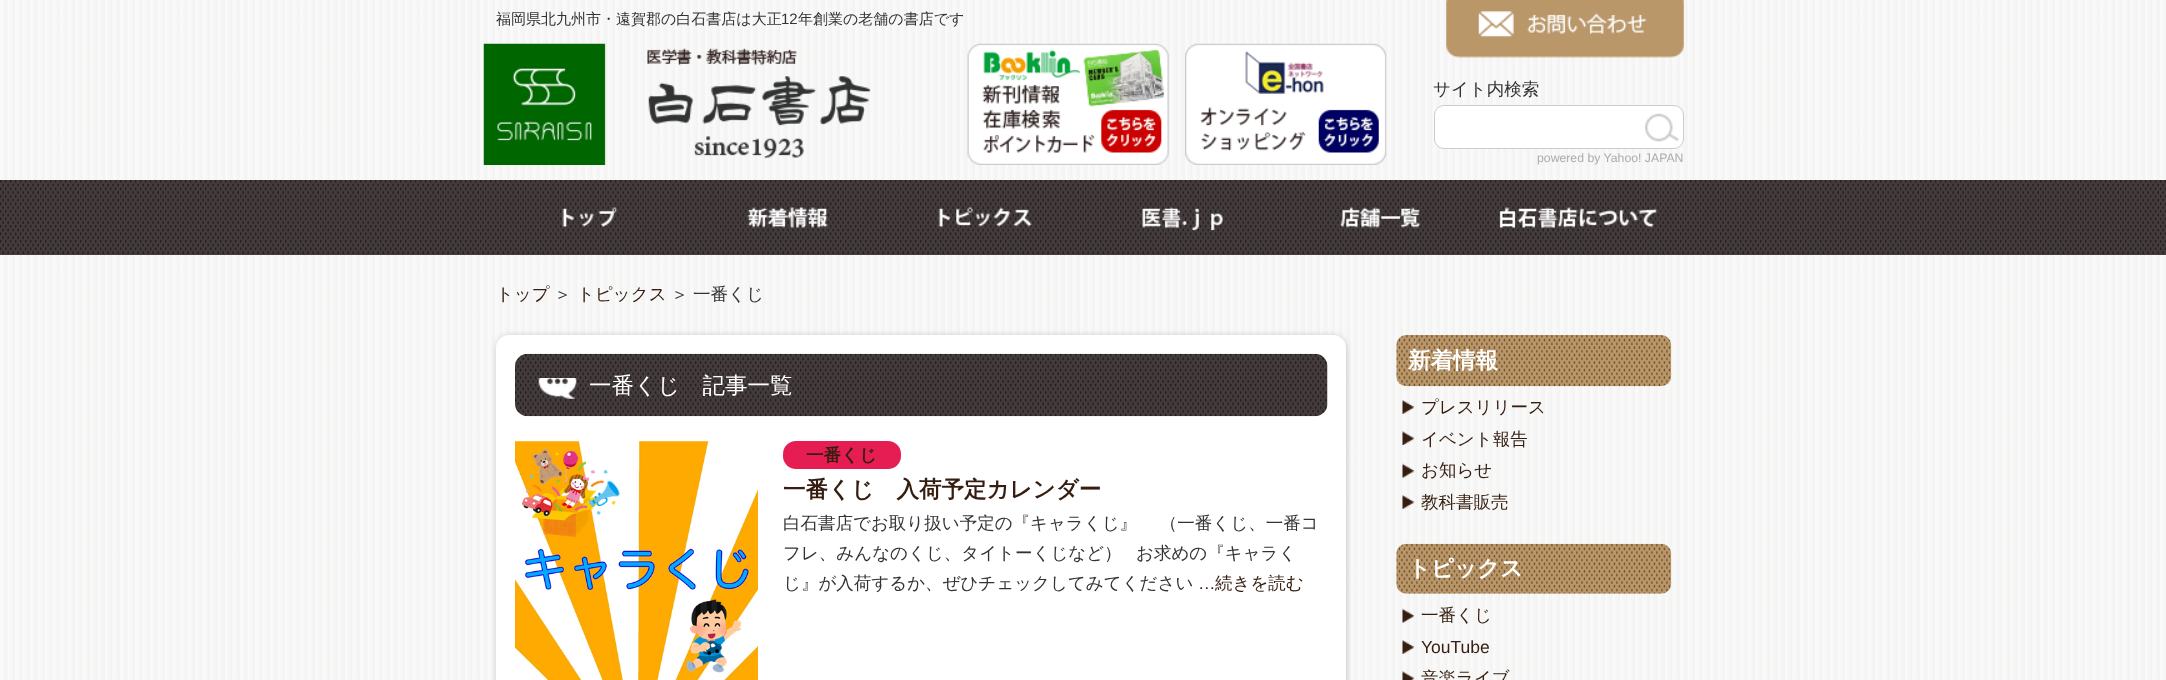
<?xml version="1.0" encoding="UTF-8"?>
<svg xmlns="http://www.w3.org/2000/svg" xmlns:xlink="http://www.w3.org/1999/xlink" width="2166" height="680">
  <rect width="100%" height="100%" fill="#ffffff" />
  <image x="0" y="0" width="2166" height="680" xlink:href="image1.png" />
  <image x="1446" y="0" width="238" height="58" xlink:href="image2.png" />
  <image x="483" y="43" width="388" height="122" xlink:href="image3.png" />
  <image x="967" y="43" width="202" height="122" xlink:href="image4.png" />
  <image x="1185" y="43" width="202" height="122" xlink:href="image5.png" />
  <rect x="1434.5" y="105.5" width="249" height="43" rx="9.5" fill="#ffffff" stroke="#cccccc" />
  <image x="1645" y="113" width="34" height="29" xlink:href="image6.png" />
  <image x="0" y="180" width="2166" height="75" xlink:href="image7.png" />
  <image x="562" y="207" width="55" height="21" xlink:href="image8.png" />
  <image x="747" y="207" width="81" height="21" xlink:href="image9.png" />
  <image x="938" y="207" width="94" height="21" xlink:href="image10.png" />
  <image x="1142" y="207" width="81" height="24" xlink:href="image11.png" />
  <image x="1340" y="207" width="81" height="21" xlink:href="image12.png" />
  <image x="1499" y="207" width="158" height="21" xlink:href="image13.png" />
  <rect x="500" y="339" width="843" height="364" rx="9" fill="#767473" filter="blur(4.5px)" />
  <rect x="496" y="335" width="850" height="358" rx="13" fill="#ffffff" />
  <image x="515" y="353" width="813" height="64" xlink:href="image14.png" />
  <image x="538" y="378" width="39" height="21" xlink:href="image15.png" />
  <image x="515" y="441" width="243" height="239" xlink:href="image16.png" />
  <rect x="783" y="441" width="118" height="28" rx="13" fill="#e51d53" />
  <image x="1396" y="335" width="276" height="52" xlink:href="image17.png" />
  <image x="1402" y="400" width="12" height="14" xlink:href="image18.png" />
  <image x="1402" y="431" width="12" height="14" xlink:href="image19.png" />
  <image x="1402" y="463" width="12" height="15" xlink:href="image20.png" />
  <image x="1402" y="495" width="12" height="14" xlink:href="image21.png" />
  <image x="1396" y="543" width="276" height="51" xlink:href="image22.png" />
  <image x="1402" y="608" width="12" height="15" xlink:href="image23.png" />
  <image x="1402" y="640" width="12" height="14" xlink:href="image18.png" />
  <image x="1402" y="671" width="12" height="9" xlink:href="image24.png" />
  <text x="496" y="24" style="font-family: WenQuanYi Zen Hei; font-size: 15px; font-weight: 500; fill: #333333">福岡県北九州市・遠賀郡の白石書店は大正</text>
  <text x="781" y="24" style="font-family: Liberation Sans; font-size: 15px; fill: #333333">12</text>
  <text x="798" y="24" style="font-family: WenQuanYi Zen Hei; font-size: 15px; font-weight: 500; fill: #333333">年創業の老舗の書店です</text>
  <text x="1433" y="95" style="font-family: WenQuanYi Zen Hei; font-size: 17.5px; font-weight: 500; fill: #333333">サイト内検索</text>
  <text x="1537" y="162" style="font-family: Liberation Sans; font-size: 12.25px; fill: #ababab">powered by Yahoo! JAPAN</text>
  <text x="496" y="300" style="font-family: WenQuanYi Zen Hei; font-size: 17.5px; font-weight: 500; fill: #351e11">トップ</text>
  <text x="554" y="300" style="font-family: WenQuanYi Zen Hei; font-size: 17.5px; font-weight: 500; fill: #333333">＞</text>
  <text x="577" y="300" style="font-family: WenQuanYi Zen Hei; font-size: 17.5px; font-weight: 500; fill: #351e11">トピックス</text>
  <text x="671" y="300" style="font-family: WenQuanYi Zen Hei; font-size: 17.5px; font-weight: 500; fill: #333333">＞</text>
  <text x="693" y="300" style="font-family: WenQuanYi Zen Hei; font-size: 17.5px; font-weight: 500; fill: #333333">一番くじ</text>
  <text x="589" y="393" style="font-family: WenQuanYi Zen Hei; font-size: 22.5px; font-weight: 500; fill: #ffffff">一番くじ　記事一覧</text>
  <text x="806" y="461" style="font-family: WenQuanYi Zen Hei; font-size: 17.5px; font-weight: bold; fill: #351e11">一番くじ</text>
  <text x="783" y="497" style="font-family: WenQuanYi Zen Hei; font-size: 22.5px; font-weight: bold; fill: #351e11">一番くじ　入荷予定カレンダー</text>
  <text x="783" y="529" style="font-family: WenQuanYi Zen Hei; font-size: 17.5px; font-weight: 500; fill: #333333">白石書店でお取り扱い予定の『キャラくじ』 　（一番くじ、一番コ</text>
  <text x="783" y="559" style="font-family: WenQuanYi Zen Hei; font-size: 17.5px; font-weight: 500; fill: #333333">フレ、みんなのくじ、タイトーくじなど）</text>
  <text x="1136" y="559" style="font-family: WenQuanYi Zen Hei; font-size: 17.5px; font-weight: 500; fill: #333333">お求めの『キャラく</text>
  <text x="783" y="589" style="font-family: WenQuanYi Zen Hei; font-size: 17.5px; font-weight: 500; fill: #333333">じ』が入荷するか、ぜひチェックしてみてください</text>
  <text x="1198" y="589" style="font-family: Liberation Sans; font-size: 17.5px; fill: #351e11">…</text>
  <text x="1215" y="589" style="font-family: WenQuanYi Zen Hei; font-size: 17.5px; font-weight: 500; fill: #351e11">続きを読む</text>
  <text x="1408" y="368" style="font-family: WenQuanYi Zen Hei; font-size: 22.5px; font-weight: bold; fill: #ffffff">新着情報</text>
  <text x="1421" y="413" style="font-family: WenQuanYi Zen Hei; font-size: 17.5px; font-weight: 500; fill: #351e11">プレスリリース</text>
  <text x="1421" y="445" style="font-family: WenQuanYi Zen Hei; font-size: 17.5px; font-weight: 500; fill: #351e11">イベント報告</text>
  <text x="1421" y="476" style="font-family: WenQuanYi Zen Hei; font-size: 17.5px; font-weight: 500; fill: #351e11">お知らせ</text>
  <text x="1421" y="508" style="font-family: WenQuanYi Zen Hei; font-size: 17.5px; font-weight: 500; fill: #351e11">教科書販売</text>
  <text x="1408" y="576" style="font-family: WenQuanYi Zen Hei; font-size: 22.5px; font-weight: bold; fill: #ffffff">トピックス</text>
  <text x="1421" y="621" style="font-family: WenQuanYi Zen Hei; font-size: 17.5px; font-weight: 500; fill: #351e11">一番くじ</text>
  <text x="1421" y="653" style="font-family: Liberation Sans; font-size: 17.5px; fill: #351e11">YouTube</text>
  <text x="1421" y="684" style="font-family: WenQuanYi Zen Hei; font-size: 17.5px; font-weight: 500; fill: #351e11">音楽ライブ</text>
</svg>
